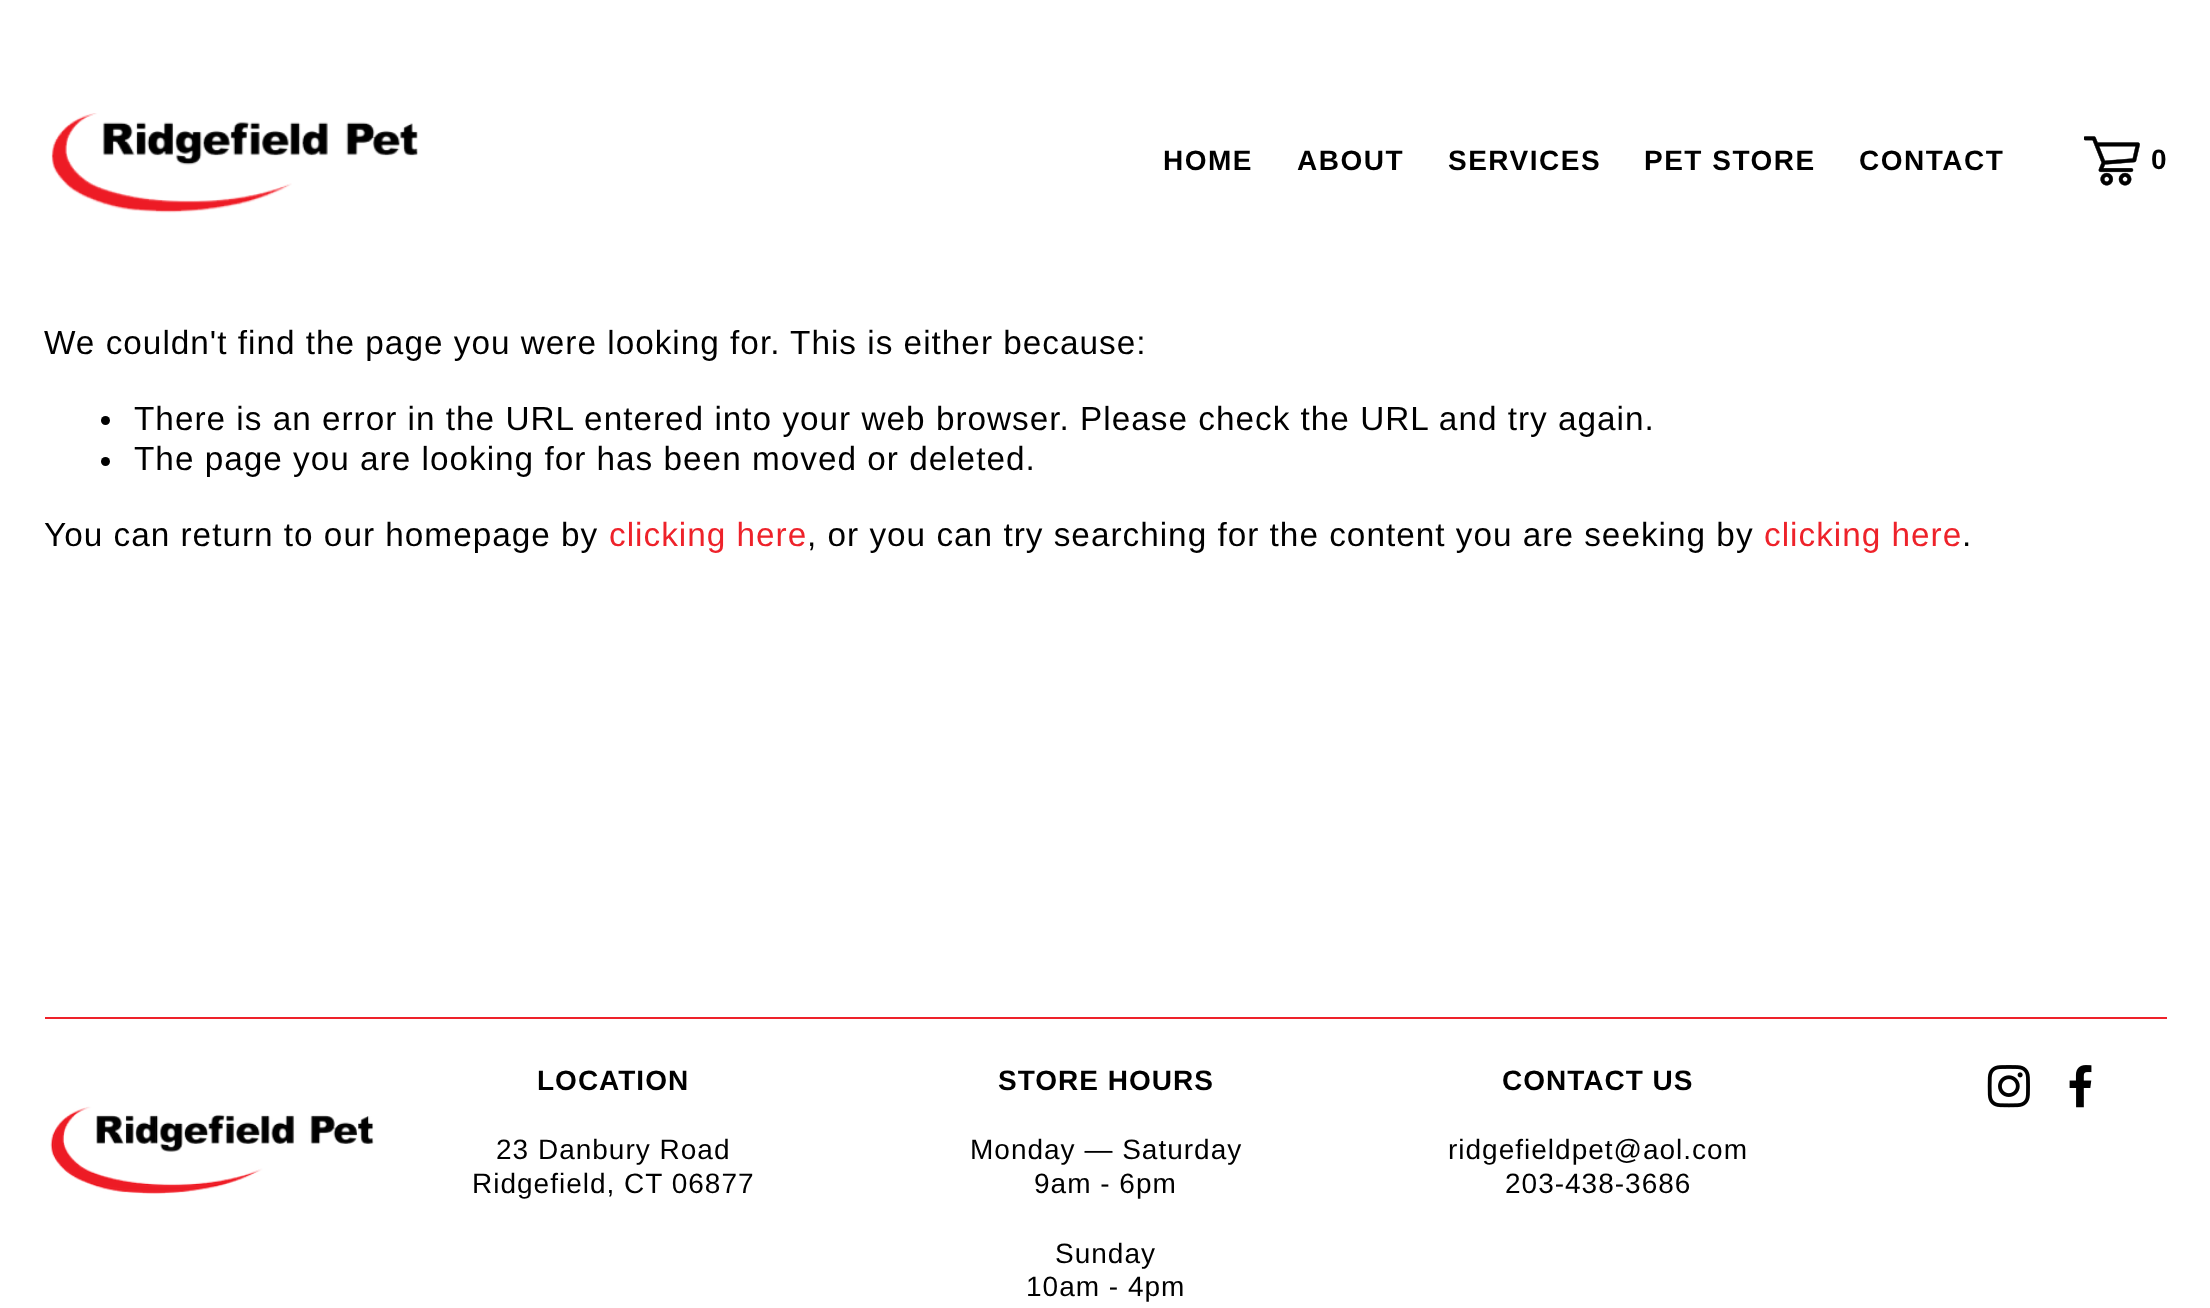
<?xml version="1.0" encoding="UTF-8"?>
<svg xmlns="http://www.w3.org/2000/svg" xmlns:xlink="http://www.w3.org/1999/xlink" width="2210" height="1308">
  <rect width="100%" height="100%" fill="#ffffff" />
  <image x="51" y="113" width="367" height="100" xlink:href="image1.png" />
  <image x="2084" y="136" width="56" height="50" xlink:href="image2.png" />
  <circle cx="105.5" cy="420.5" r="4.5" fill="#000000" />
  <circle cx="105.5" cy="461.5" r="4.5" fill="#000000" />
  <rect x="45" y="1017" width="2122" height="2" fill="#ee222a" />
  <image x="50" y="1106" width="324" height="88" xlink:href="image3.png" />
  <image x="1987" y="1065" width="43" height="43" xlink:href="image4.png" />
  <image x="2069" y="1065" width="23" height="43" xlink:href="image5.png" />
  <text x="1163" y="170" style="font-family: Liberation Sans; font-size: 28px; font-weight: bold; letter-spacing: 1.5px; fill: #000000">HOME</text>
  <text x="1297" y="170" style="font-family: Liberation Sans; font-size: 28px; font-weight: bold; letter-spacing: 1.5px; fill: #000000">ABOUT</text>
  <text x="1448" y="170" style="font-family: Liberation Sans; font-size: 28px; font-weight: bold; letter-spacing: 1.5px; fill: #000000">SERVICES</text>
  <text x="1644" y="170" style="font-family: Liberation Sans; font-size: 28px; font-weight: bold; letter-spacing: 1.5px; fill: #000000">PET STORE</text>
  <text x="1859" y="170" style="font-family: Liberation Sans; font-size: 28px; font-weight: bold; letter-spacing: 1.5px; fill: #000000">CONTACT</text>
  <text x="2151" y="169" style="font-family: Liberation Sans; font-size: 28px; font-weight: bold; letter-spacing: 1.5px; fill: #000000">0</text>
  <text x="44" y="354" style="font-family: Liberation Sans; font-size: 33.35px; letter-spacing: 1px; fill: #000000">We couldn't find the page you were looking for. This is either because:</text>
  <text x="134" y="430" style="font-family: Liberation Sans; font-size: 33.35px; letter-spacing: 1px; fill: #000000">There is an error in the URL entered into your web browser. Please check the URL and try again.</text>
  <text x="134" y="470" style="font-family: Liberation Sans; font-size: 33.35px; letter-spacing: 1px; fill: #000000">The page you are looking for has been moved or deleted.</text>
  <text x="44" y="546" style="font-family: Liberation Sans; font-size: 33.35px; letter-spacing: 1px; fill: #000000">You can return to our homepage by</text>
  <text x="609" y="546" style="font-family: Liberation Sans; font-size: 33.35px; letter-spacing: 1px; fill: #ee222a">clicking here</text>
  <text x="807" y="546" style="font-family: Liberation Sans; font-size: 33.35px; letter-spacing: 1px; fill: #000000">, or you can try searching for the content you are seeking by</text>
  <text x="1764" y="546" style="font-family: Liberation Sans; font-size: 33.35px; letter-spacing: 1px; fill: #ee222a">clicking here</text>
  <text x="1962" y="546" style="font-family: Liberation Sans; font-size: 33.35px; letter-spacing: 1px; fill: #000000">.</text>
  <text x="537" y="1090" style="font-family: Liberation Sans; font-size: 28px; font-weight: bold; letter-spacing: 1px; fill: #000000">LOCATION</text>
  <text x="496" y="1159" style="font-family: Liberation Sans; font-size: 28px; letter-spacing: 1px; fill: #000000">23 Danbury Road</text>
  <text x="472" y="1193" style="font-family: Liberation Sans; font-size: 28px; letter-spacing: 1px; fill: #000000">Ridgefield, CT 06877</text>
  <text x="998" y="1090" style="font-family: Liberation Sans; font-size: 28px; font-weight: bold; letter-spacing: 1px; fill: #000000">STORE HOURS</text>
  <text x="970" y="1159" style="font-family: Liberation Sans; font-size: 28px; letter-spacing: 1px; fill: #000000">Monday — Saturday</text>
  <text x="1034" y="1193" style="font-family: Liberation Sans; font-size: 28px; letter-spacing: 1px; fill: #000000">9am - 6pm</text>
  <text x="1055" y="1263" style="font-family: Liberation Sans; font-size: 28px; letter-spacing: 1px; fill: #000000">Sunday</text>
  <text x="1026" y="1296" style="font-family: Liberation Sans; font-size: 28px; letter-spacing: 1px; fill: #000000">10am - 4pm</text>
  <text x="1502" y="1090" style="font-family: Liberation Sans; font-size: 28px; font-weight: bold; letter-spacing: 1px; fill: #000000">CONTACT US</text>
  <text x="1448" y="1159" style="font-family: Liberation Sans; font-size: 28px; letter-spacing: 1px; fill: #000000">ridgefieldpet@aol.com</text>
  <text x="1505" y="1193" style="font-family: Liberation Sans; font-size: 28px; letter-spacing: 1px; fill: #000000">203-438-3686</text>
</svg>
